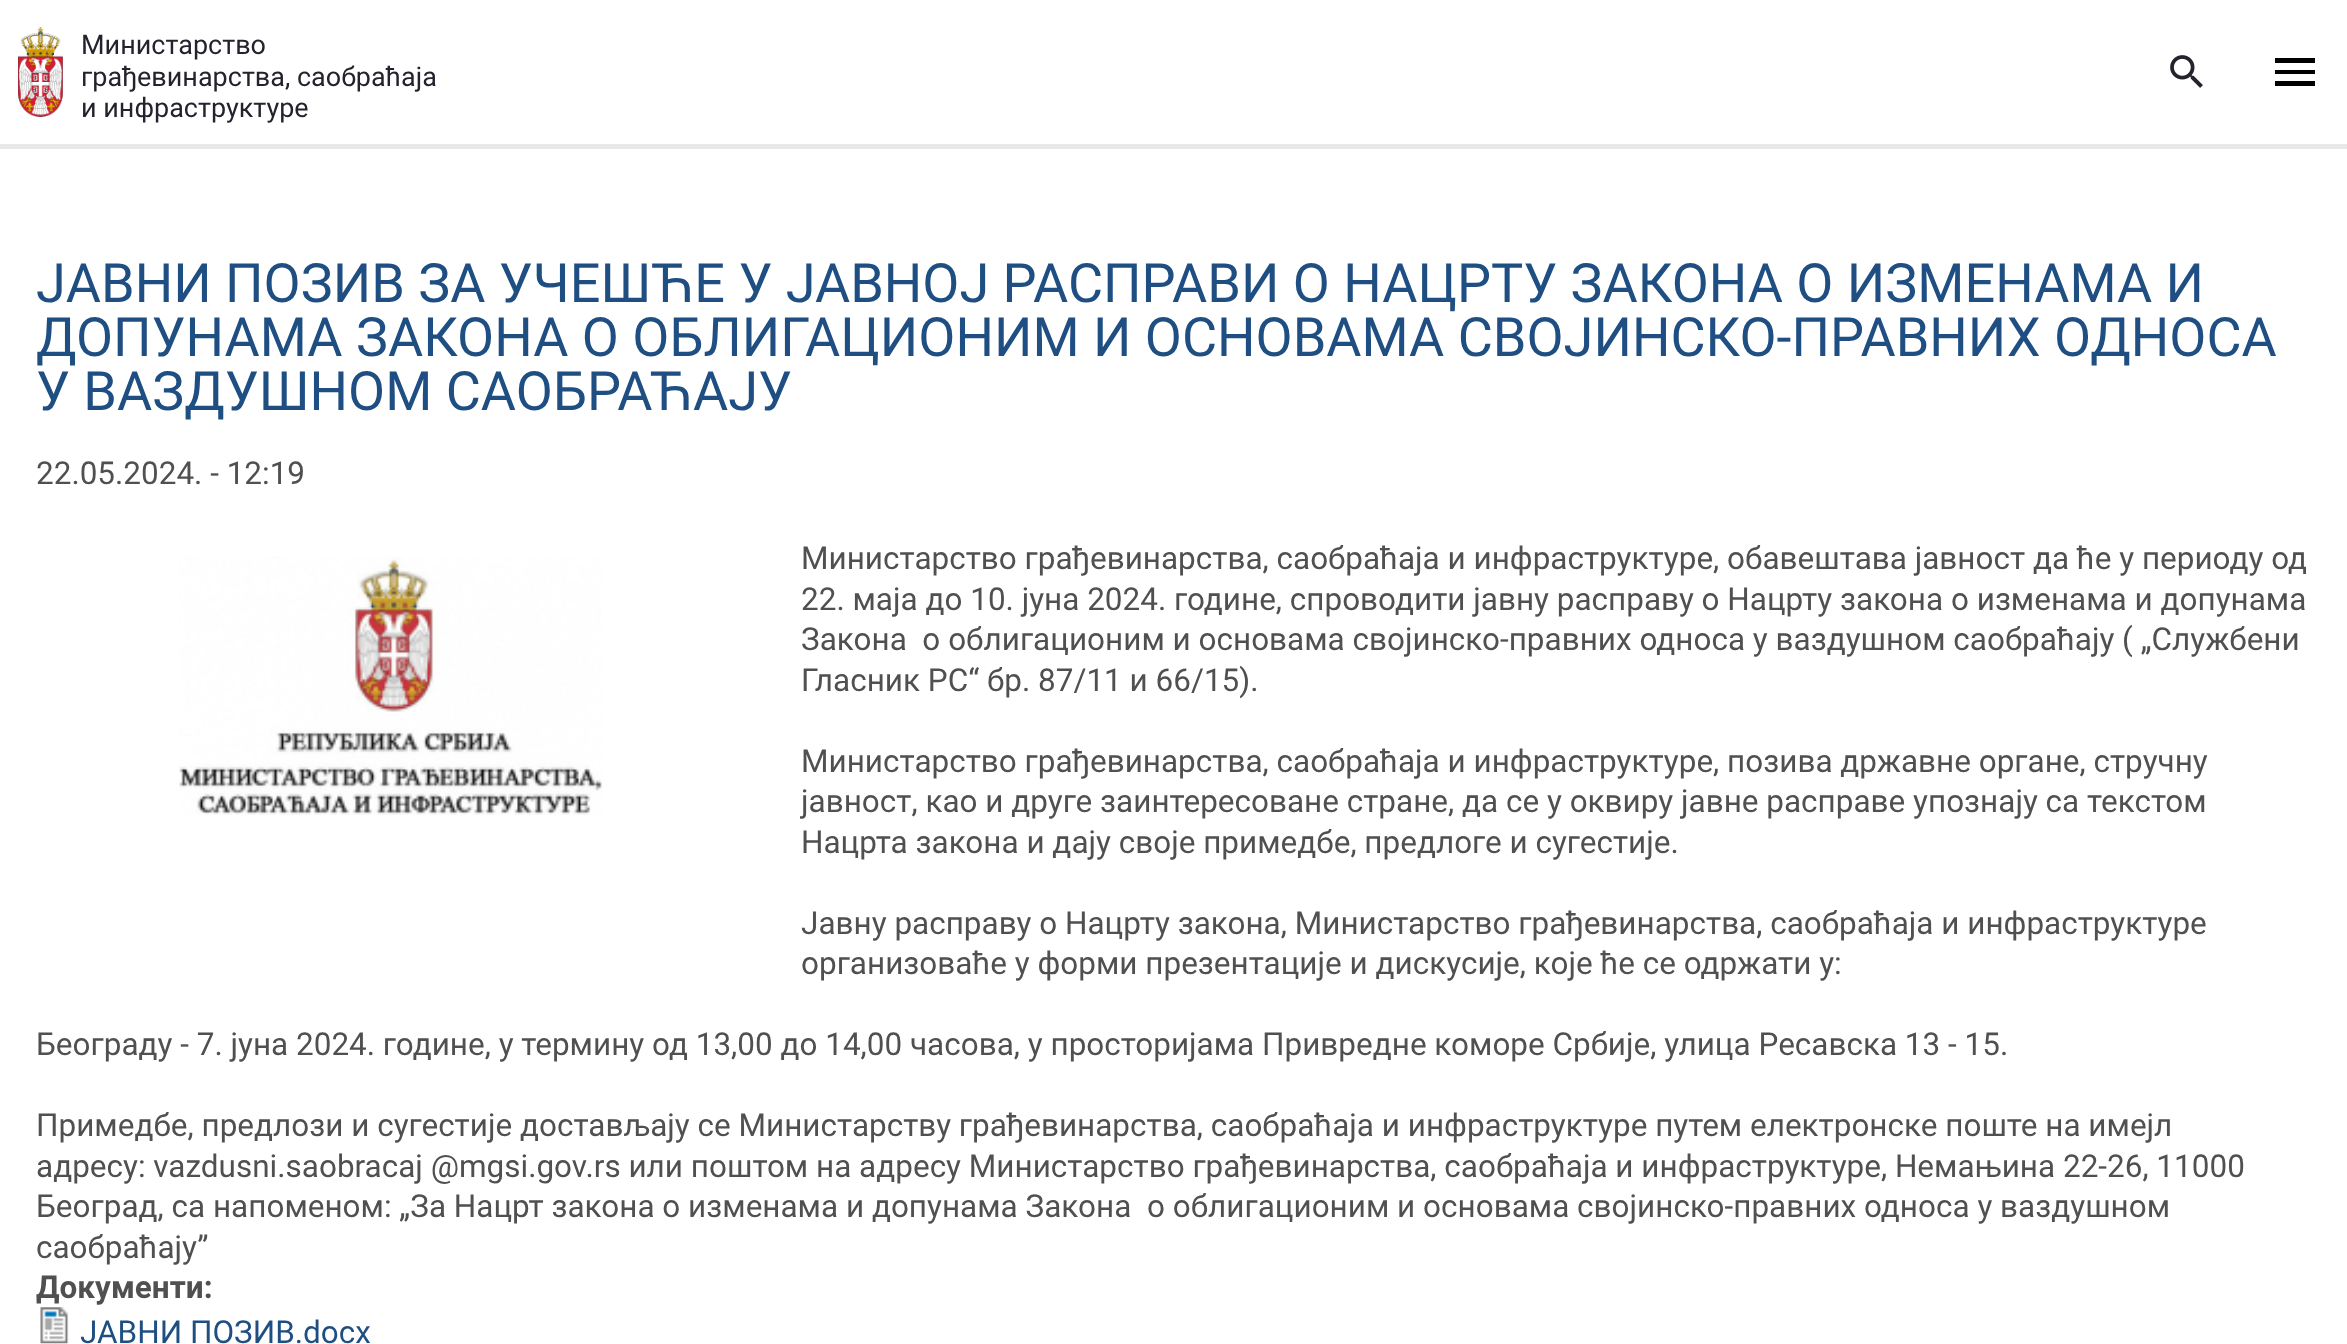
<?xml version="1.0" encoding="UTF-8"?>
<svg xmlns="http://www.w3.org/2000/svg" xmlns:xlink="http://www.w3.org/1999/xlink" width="2347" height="1344">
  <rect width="100%" height="100%" fill="#ffffff" />
  <rect y="144" width="2347" height="5" fill="#e9e9ea" />
  <image x="18" y="27" width="45" height="90" xlink:href="image1.png" />
  <image x="2170" y="55" width="33" height="33" xlink:href="image2.png" />
  <path d="M 2275 58 h 40 v 5 h -40 z m 0 12 h 40 v 4 h -40 z m 0 11 h 40 v 5 h -40 z" fill="#000000" />
  <image x="179" y="556" width="424" height="259" xlink:href="image3.png" />
  <image x="40" y="1307" width="29" height="37" xlink:href="image4.png" />
  <text x="81" y="54" style="font-family: Roboto; font-size: 27px; fill: #25212d">Министарство</text>
  <text x="81" y="86" style="font-family: Roboto; font-size: 27px; fill: #25212d">грађевинарства, саобраћаја</text>
  <text x="81" y="117" style="font-family: Roboto; font-size: 27px; fill: #25212d">и инфраструктуре</text>
  <text x="36" y="302" style="font-family: Roboto; font-size: 54px; fill: #1f4f82">JАВНИ ПОЗИВ ЗА УЧЕШЋЕ У ЈАВНОЈ РАСПРАВИ О НАЦРТУ ЗАКОНА О ИЗМЕНАМА И</text>
  <text x="36" y="356" style="font-family: Roboto; font-size: 54px; fill: #1f4f82">ДОПУНАМА ЗАКОНА О ОБЛИГАЦИОНИМ И ОСНОВАМА СВОЈИНСКО-ПРАВНИХ ОДНОСА</text>
  <text x="36" y="410" style="font-family: Roboto; font-size: 54px; fill: #1f4f82">У ВАЗДУШНОМ САОБРАЋАЈУ</text>
  <text x="36" y="484" style="font-family: Roboto; font-size: 31.5px; fill: #505050">22.05.2024. - 12:19</text>
  <text x="801" y="569" style="font-family: Roboto; font-size: 31.5px; fill: #505050">Министарство грађевинарства, саобраћаја и инфраструктуре, обавештава јавност да ће у периоду од</text>
  <text x="801" y="610" style="font-family: Roboto; font-size: 31.5px; fill: #505050">22. маја до 10. јуна 2024. године, спроводити јавну расправу о Нацрту закона о изменама и допунама</text>
  <text x="801" y="650" style="font-family: Roboto; font-size: 31.5px; fill: #505050" xml:space="preserve">Закона  о облигационим и основама својинско-правних односа у ваздушном саобраћају ( „Службени</text>
  <text x="801" y="691" style="font-family: Roboto; font-size: 31.5px; fill: #505050">Гласник РС“ бр. 87/11 и 66/15).</text>
  <text x="801" y="772" style="font-family: Roboto; font-size: 31.5px; fill: #505050">Министарство грађевинарства, саобраћаја и инфраструктуре, позива државне органе, стручну</text>
  <text x="801" y="812" style="font-family: Roboto; font-size: 31.5px; fill: #505050">јавност, као и друге заинтересоване стране, да се у оквиру јавне расправе упознају са текстом</text>
  <text x="801" y="853" style="font-family: Roboto; font-size: 31.5px; fill: #505050">Нацрта закона и дају своје примедбе, предлоге и сугестије.</text>
  <text x="801" y="934" style="font-family: Roboto; font-size: 31.5px; fill: #505050">Јавну расправу о Нацрту закона, Министарство грађевинарства, саобраћаја и инфраструктуре</text>
  <text x="801" y="974" style="font-family: Roboto; font-size: 31.5px; fill: #505050">организоваће у форми презентације и дискусије, које ће се одржати у:</text>
  <text x="36" y="1055" style="font-family: Roboto; font-size: 31.5px; fill: #505050">Београду - 7. јуна 2024. године, у термину од 13,00 до 14,00 часова, у просторијама Привредне коморе Србије, улица Ресавска 13 - 15.</text>
  <text x="36" y="1136" style="font-family: Roboto; font-size: 31.5px; fill: #505050">Примедбе, предлози и сугестије достављају се Министарству грађевинарства, саобраћаја и инфраструктуре путем електронске поште на имејл</text>
  <text x="36" y="1177" style="font-family: Roboto; font-size: 31.5px; fill: #505050">адресу: vazdusni.saobracaj @mgsi.gov.rs или поштом на адресу Министарство грађевинарства, саобраћаја и инфраструктуре, Немањина 22-26, 11000</text>
  <text x="36" y="1217" style="font-family: Roboto; font-size: 31.5px; fill: #505050" xml:space="preserve">Београд, са напоменом: „За Нацрт закона о изменама и допунама Закона  о облигационим и основама својинско-правних односа у ваздушном</text>
  <text x="36" y="1258" style="font-family: Roboto; font-size: 31.5px; fill: #505050">саобраћају”</text>
  <text x="36" y="1298" style="font-family: Roboto; font-size: 31.5px; font-weight: bold; fill: #505050">Документи:</text>
  <text x="80" y="1343" style="font-family: Roboto; font-size: 31.5px; fill: #1f4f82">ЈАВНИ ПОЗИВ.docx</text>
</svg>
